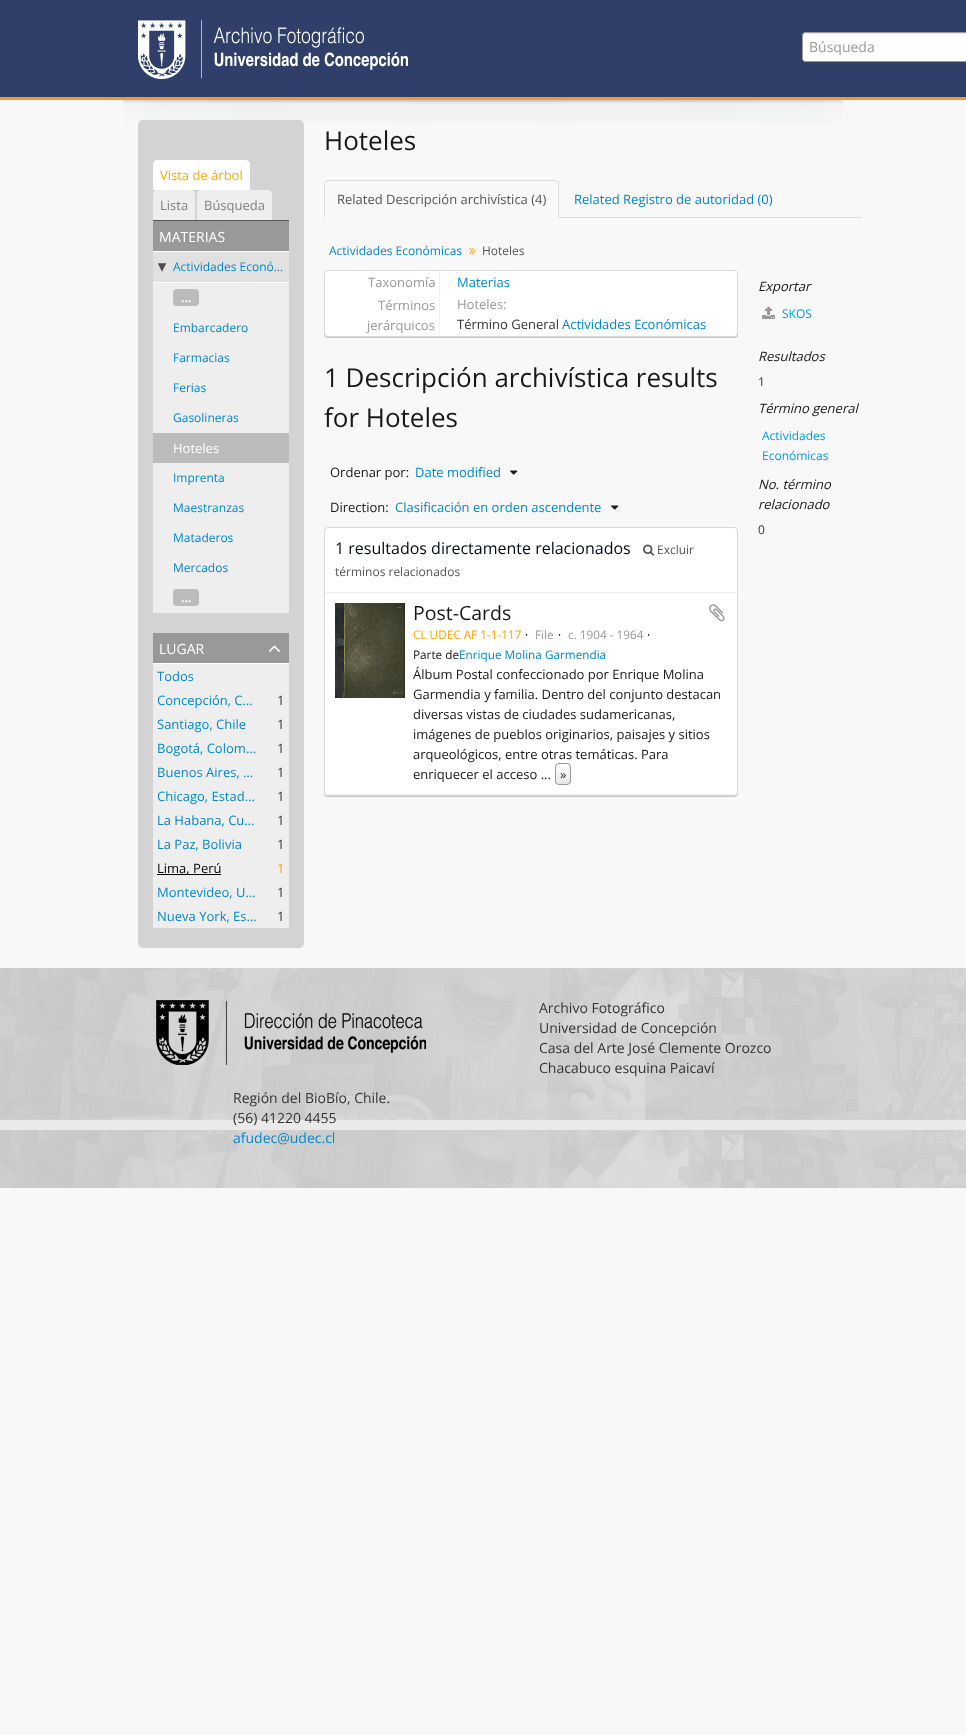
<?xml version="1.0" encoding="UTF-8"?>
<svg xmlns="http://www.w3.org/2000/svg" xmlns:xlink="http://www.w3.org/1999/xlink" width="966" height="1735">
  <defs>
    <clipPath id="clip1"><rect x="555" y="763" width="16" height="22" rx="4" /></clipPath>
    <linearGradient id="g1" gradientUnits="userSpaceOnUse" x1="563" y1="764" x2="563" y2="784"><stop offset="0" stop-color="#ffffff" /><stop offset="1" stop-color="#e6e6e6" /></linearGradient>
  </defs>
  <rect width="100%" height="100%" fill="#f8f8f8" />
  <rect width="966" height="97" fill="#2f3f69" />
  <rect y="97" width="966" height="3" fill="#ff9233" />
  <image x="138" y="20" width="270" height="59" xlink:href="image1.png" />
  <path d="M 806 32 h 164 v 30 h -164 c -2 0 -4 -2 -4 -4 v -22 c 0 -2 2 -4 4 -4 z" fill="#ffffff" />
  <path d="M 806 34 h 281 v -1 h -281 c -2 0 -3 2 -3 4 c 0 -2 1 -3 3 -3 z" fill="#ececec" />
  <path d="M 806 32.5 h 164.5 v 29 h -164.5 c -2 0 -3.5 -1.5 -3.5 -3.5 v -22 c 0 -2 1.5 -3.5 3.5 -3.5 z" fill="none" stroke="#9a9a9a" />
  <image x="123" y="100" width="720" height="23" xlink:href="image2.png" />
  <rect x="138" y="120" width="166" height="828" rx="5" fill="#d3d3d3" />
  <rect x="153" y="220" width="136" height="1" fill="#555555" />
  <path d="M 157 160.5 h 89 c 2 0 3.5 1.5 3.5 3.5 v 25.5 h -96 v -25.5 c 0 -2 1.5 -3.5 3.5 -3.5 z" fill="#ffffff" stroke="#ffffff" />
  <path d="M 157 190 h 34 c 2 0 4 2 4 4 v 26 h -42 v -26 c 0 -2 2 -4 4 -4 z" fill="#eeeeee" />
  <path d="M 201 190 h 67 c 2 0 4 2 4 4 v 26 h -75 v -26 c 0 -2 2 -4 4 -4 z" fill="#eeeeee" />
  <rect x="153" y="283" width="136" height="330" fill="#eeeeee" />
  <rect x="153" y="221" width="136" height="30" fill="#999999" />
  <rect x="153" y="251" width="136" height="1" fill="#ffffff" />
  <rect x="153" y="252" width="136" height="30" fill="#e1e1e1" />
  <rect x="153" y="282" width="136" height="1" fill="#ffffff" />
  <image x="158" y="263" width="9" height="9" xlink:href="image3.png" />
  <rect x="173" y="289" width="26" height="17" rx="4" fill="#bbbbbb" />
  <rect x="153" y="433" width="136" height="30" fill="#bbbbbb" />
  <rect x="173" y="589" width="26" height="17" rx="4" fill="#bbbbbb" />
  <rect x="153" y="663" width="136" height="1" fill="#ffffff" />
  <rect x="153" y="633" width="136" height="30" fill="#999999" />
  <image x="269" y="645" width="11" height="7" xlink:href="image4.png" />
  <rect x="153" y="664" width="136" height="264" fill="#eeeeee" />
  <rect x="157" y="874" width="64" height="1" fill="#000000" />
  <rect x="559" y="217" width="303" height="1" fill="#dddddd" />
  <path d="M 328 180 l -3 1 l 1 1 l 2 -1 h 227 l 2 1 l 1 -1 l -3 -1 z" fill="#dddddd" />
  <path d="M 559 218 v -34 c 0 -1 -0.5 -2 -1 -3 l -1 1 c 1 0 1 1 1 2 v 33 z" fill="#dddddd" />
  <path d="M 324 218 l 1 -1 v -33 c 0 -1 0 -2 1 -2 l -1 -1 c -0.5 1 -1 2 -1 3 z" fill="#dddddd" />
  <image x="469" y="247" width="7" height="8" xlink:href="image5.png" />
  <rect x="324" y="271" width="414" height="67" rx="4" fill="#000000" fill-opacity="0.2" filter="blur(0.5px)" />
  <rect x="324.5" y="270.5" width="413" height="66" rx="3.5" fill="#ffffff" stroke="#d9d9d9" />
  <rect x="439" y="271" width="1" height="65" fill="#f2f2f2" />
  <image x="510" y="470" width="8" height="5" xlink:href="image6.png" />
  <image x="611" y="505" width="8" height="5" xlink:href="image6.png" />
  <rect x="324" y="528" width="414" height="269" rx="4" fill="#000000" fill-opacity="0.2" filter="blur(0.5px)" />
  <rect x="324.5" y="527.5" width="413" height="268" rx="3.5" fill="#ffffff" stroke="#d9d9d9" />
  <rect x="325" y="592" width="412" height="1" fill="#eeeeee" />
  <image x="643" y="544" width="12" height="12" xlink:href="image7.png" />
  <rect x="325" y="794" width="412" height="1" fill="#eeeeee" />
  <image x="335" y="603" width="70" height="95" xlink:href="image8.png" />
  <image x="709" y="604" width="16" height="18" xlink:href="image9.png" />
  <g clip-path="url(#clip1)">
    <rect x="555" y="764" width="16" height="20" fill="url(#g1)" />
  </g>
  <rect x="555.5" y="763.5" width="15" height="21" rx="3.5" fill="none" stroke="#999999" />
  <image x="762" y="306" width="13" height="13" xlink:href="image10.png" />
  <image x="0" y="968" width="966" height="220" xlink:href="image11.png" />
  <image x="156" y="1000" width="270" height="65" xlink:href="image12.png" />
  <text x="809" y="52" style="font-family: 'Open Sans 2'; font-size: 14px; fill: #999999">Búsqueda</text>
  <text x="160" y="180" style="font-family: Open Sans; font-size: 13px; fill: #f6ac00">Vista de árbol</text>
  <text x="160" y="210" style="font-family: Open Sans; font-size: 13px; fill: #808080">Lista</text>
  <text x="204" y="210" style="font-family: Open Sans; font-size: 13px; fill: #808080">Búsqueda</text>
  <text x="159" y="242" style="font-family: 'Open Sans 2'; font-size: 14px; fill: #ffffff">MATERIAS</text>
  <text x="173" y="271" style="font-family: Open Sans; font-size: 12px; fill: #0088cc">Actividades Econó…</text>
  <text x="181" y="302" style="font-family: Open Sans; font-size: 12px; font-weight: bold; fill: #ffffff">...</text>
  <text x="173" y="332" style="font-family: Open Sans; font-size: 12px; fill: #0088cc">Embarcadero</text>
  <text x="173" y="362" style="font-family: Open Sans; font-size: 12px; fill: #0088cc">Farmacias</text>
  <text x="173" y="392" style="font-family: Open Sans; font-size: 12px; fill: #0088cc">Ferias</text>
  <text x="173" y="422" style="font-family: Open Sans; font-size: 12px; fill: #0088cc">Gasolineras</text>
  <text x="173" y="453" style="font-family: Open Sans; font-size: 13px; fill: #ffffff">Hoteles</text>
  <text x="173" y="482" style="font-family: Open Sans; font-size: 12px; fill: #0088cc">Imprenta</text>
  <text x="173" y="512" style="font-family: Open Sans; font-size: 12px; fill: #0088cc">Maestranzas</text>
  <text x="173" y="542" style="font-family: Open Sans; font-size: 12px; fill: #0088cc">Mataderos</text>
  <text x="173" y="572" style="font-family: Open Sans; font-size: 12px; fill: #0088cc">Mercados</text>
  <text x="181" y="602" style="font-family: Open Sans; font-size: 12px; font-weight: bold; fill: #ffffff">...</text>
  <text x="159" y="654" style="font-family: Open Sans; font-size: 14px; fill: #ffffff">LUGAR</text>
  <text x="157" y="681" style="font-family: 'Open Sans 2'; font-size: 13px; fill: #0088cc">Todos</text>
  <text x="157" y="705" style="font-family: 'Open Sans 2'; font-size: 13px; fill: #0088cc">Concepción, C…</text>
  <text x="277" y="705" style="font-family: 'Open Sans 2'; font-size: 13px; fill: #333333">1</text>
  <text x="157" y="729" style="font-family: 'Open Sans 2'; font-size: 13px; fill: #0088cc">Santiago, Chile</text>
  <text x="277" y="729" style="font-family: 'Open Sans 2'; font-size: 13px; fill: #333333">1</text>
  <text x="157" y="753" style="font-family: 'Open Sans 2'; font-size: 13px; fill: #0088cc">Bogotá, Colom…</text>
  <text x="277" y="753" style="font-family: 'Open Sans 2'; font-size: 13px; fill: #333333">1</text>
  <text x="157" y="777" style="font-family: 'Open Sans 2'; font-size: 13px; fill: #0088cc">Buenos Aires, …</text>
  <text x="277" y="777" style="font-family: 'Open Sans 2'; font-size: 13px; fill: #333333">1</text>
  <text x="157" y="801" style="font-family: 'Open Sans 2'; font-size: 13px; fill: #0088cc">Chicago, Estad…</text>
  <text x="277" y="801" style="font-family: 'Open Sans 2'; font-size: 13px; fill: #333333">1</text>
  <text x="157" y="825" style="font-family: 'Open Sans 2'; font-size: 13px; fill: #0088cc">La Habana, Cu…</text>
  <text x="277" y="825" style="font-family: 'Open Sans 2'; font-size: 13px; fill: #333333">1</text>
  <text x="157" y="849" style="font-family: 'Open Sans 2'; font-size: 13px; fill: #0088cc">La Paz, Bolivia</text>
  <text x="277" y="849" style="font-family: 'Open Sans 2'; font-size: 13px; fill: #333333">1</text>
  <text x="157" y="873" style="font-family: Open Sans; font-size: 13px; fill: #000000">Lima, Perú</text>
  <text x="277" y="873" style="font-family: Open Sans; font-size: 13px; fill: #ffa103">1</text>
  <text x="157" y="897" style="font-family: 'Open Sans 2'; font-size: 13px; fill: #0088cc">Montevideo, U…</text>
  <text x="277" y="897" style="font-family: 'Open Sans 2'; font-size: 13px; fill: #333333">1</text>
  <text x="157" y="921" style="font-family: 'Open Sans 2'; font-size: 13px; fill: #0088cc">Nueva York, Es…</text>
  <text x="277" y="921" style="font-family: 'Open Sans 2'; font-size: 13px; fill: #333333">1</text>
  <text x="324" y="150" style="font-family: Open Sans; font-size: 26px; fill: #1a171b">Hoteles</text>
  <text x="337" y="204" style="font-family: Open Sans; font-size: 13px; fill: #555555">Related Descripción archivística (4)</text>
  <text x="574" y="204" style="font-family: Open Sans; font-size: 13px; fill: #0088cc">Related Registro de autoridad (0)</text>
  <text x="329" y="255" style="font-family: Open Sans; font-size: 12px; fill: #0088cc">Actividades Económicas</text>
  <text x="482" y="255" style="font-family: Open Sans; font-size: 12px; fill: #555555">Hoteles</text>
  <text x="368" y="287" style="font-family: 'Open Sans 2'; font-size: 13px; fill: #999999">Taxonomía</text>
  <text x="457" y="287" style="font-family: Open Sans; font-size: 13px; fill: #0088cc">Materias</text>
  <text x="378" y="310" style="font-family: 'Open Sans 2'; font-size: 13px; fill: #999999">Términos</text>
  <text x="367" y="330" style="font-family: 'Open Sans 2'; font-size: 13px; fill: #999999">jerárquicos</text>
  <text x="457" y="309" style="font-family: 'Open Sans 2'; font-size: 13px; fill: #999999">Hoteles:</text>
  <text x="457" y="329" style="font-family: Open Sans; font-size: 13px; fill: #333333">Término General</text>
  <text x="562" y="329" style="font-family: Open Sans; font-size: 13px; fill: #0088cc">Actividades Económicas</text>
  <text x="324" y="387" style="font-family: Open Sans; font-size: 26px; fill: #1a171b">1 Descripción archivística results</text>
  <text x="324" y="427" style="font-family: Open Sans; font-size: 26px; fill: #1a171b">for Hoteles</text>
  <text x="330" y="477" style="font-family: Open Sans; font-size: 13px; fill: #1a171b">Ordenar por:</text>
  <text x="415" y="477" style="font-family: Open Sans; font-size: 13px; fill: #0088cc">Date modified</text>
  <text x="330" y="512" style="font-family: Open Sans; font-size: 13px; fill: #1a171b">Direction:</text>
  <text x="395" y="512" style="font-family: Open Sans; font-size: 13px; fill: #0088cc">Clasificación en orden ascendente</text>
  <text x="335" y="554" style="font-family: Open Sans; font-size: 16px; fill: #010b15">1 resultados directamente relacionados</text>
  <text x="657" y="554" style="font-family: Open Sans; font-size: 12px; fill: #555555">Excluir</text>
  <text x="335" y="576" style="font-family: Open Sans; font-size: 12px; fill: #555555">términos relacionados</text>
  <text x="413" y="620" style="font-family: Open Sans; font-size: 19.5px; fill: #1a171b">Post-Cards</text>
  <text x="413" y="639" style="font-family: Open Sans; font-size: 11.75px; fill: #ffa103">CL UDEC AF 1-1-117</text>
  <text x="525" y="639" style="font-family: 'Open Sans 2'; font-size: 11.75px; fill: #000000">·</text>
  <text x="535" y="639" style="font-family: Open Sans; font-size: 11.75px; fill: #999999">File</text>
  <text x="558" y="639" style="font-family: 'Open Sans 2'; font-size: 11.75px; fill: #000000">·</text>
  <text x="568" y="639" style="font-family: Open Sans; font-size: 11.75px; fill: #999999">c. 1904 - 1964</text>
  <text x="647" y="639" style="font-family: 'Open Sans 2'; font-size: 11.75px; fill: #000000">·</text>
  <text x="413" y="659" style="font-family: Open Sans; font-size: 11.75px; fill: #1a171b">Parte de</text>
  <text x="459" y="659" style="font-family: Open Sans; font-size: 11.75px; fill: #0088cc">Enrique Molina Garmendia</text>
  <text x="413" y="679" style="font-family: Open Sans; font-size: 13px; fill: #1a171b">Álbum Postal confeccionado por Enrique Molina</text>
  <text x="413" y="699" style="font-family: Open Sans; font-size: 13px; fill: #1a171b">Garmendia y familia. Dentro del conjunto destacan</text>
  <text x="413" y="719" style="font-family: Open Sans; font-size: 13px; fill: #1a171b">diversas vistas de ciudades sudamericanas,</text>
  <text x="413" y="739" style="font-family: Open Sans; font-size: 13px; fill: #1a171b">imágenes de pueblos originarios, paisajes y sitios</text>
  <text x="413" y="759" style="font-family: Open Sans; font-size: 13px; fill: #1a171b">arqueológicos, entre otras temáticas. Para</text>
  <text x="413" y="779" style="font-family: Open Sans; font-size: 13px; fill: #1a171b">enriquecer el acceso ...</text>
  <text x="560" y="779" style="font-family: Open Sans; font-size: 13px; fill: #333333">»</text>
  <text x="758" y="291" style="font-family: Open Sans; font-size: 13px; font-style: italic; fill: #1a171b">Exportar</text>
  <text x="782" y="318" style="font-family: Open Sans; font-size: 12px; fill: #049cdb">SKOS</text>
  <text x="758" y="361" style="font-family: Open Sans; font-size: 13px; font-style: italic; fill: #1a171b">Resultados</text>
  <text x="758" y="386" style="font-family: Open Sans; font-size: 12px; fill: #333333">1</text>
  <text x="758" y="413" style="font-family: Open Sans; font-size: 13px; font-style: italic; fill: #1a171b">Término general</text>
  <text x="762" y="440" style="font-family: Open Sans; font-size: 12px; fill: #049cdb">Actividades</text>
  <text x="762" y="460" style="font-family: Open Sans; font-size: 12px; fill: #049cdb">Económicas</text>
  <text x="758" y="489" style="font-family: Open Sans; font-size: 13px; font-style: italic; fill: #1a171b">No. término</text>
  <text x="758" y="509" style="font-family: Open Sans; font-size: 13px; font-style: italic; fill: #1a171b">relacionado</text>
  <text x="758" y="534" style="font-family: Open Sans; font-size: 12px; fill: #333333">0</text>
  <text x="539" y="1013" style="font-family: Open Sans; font-size: 14px; fill: #333333">Archivo Fotográfico</text>
  <text x="539" y="1033" style="font-family: Open Sans; font-size: 14px; fill: #333333">Universidad de Concepción</text>
  <text x="539" y="1053" style="font-family: Open Sans; font-size: 14px; fill: #333333">Casa del Arte José Clemente Orozco</text>
  <text x="539" y="1073" style="font-family: Open Sans; font-size: 14px; fill: #333333">Chacabuco esquina Paicaví</text>
  <text x="233" y="1103" style="font-family: Open Sans; font-size: 14px; fill: #333333">Región del BioBío, Chile.</text>
  <text x="233" y="1123" style="font-family: Open Sans; font-size: 14px; fill: #333333">(56) 41220 4455</text>
  <text x="233" y="1143" style="font-family: Open Sans; font-size: 14px; fill: #0088cc">afudec@udec.cl</text>
</svg>
